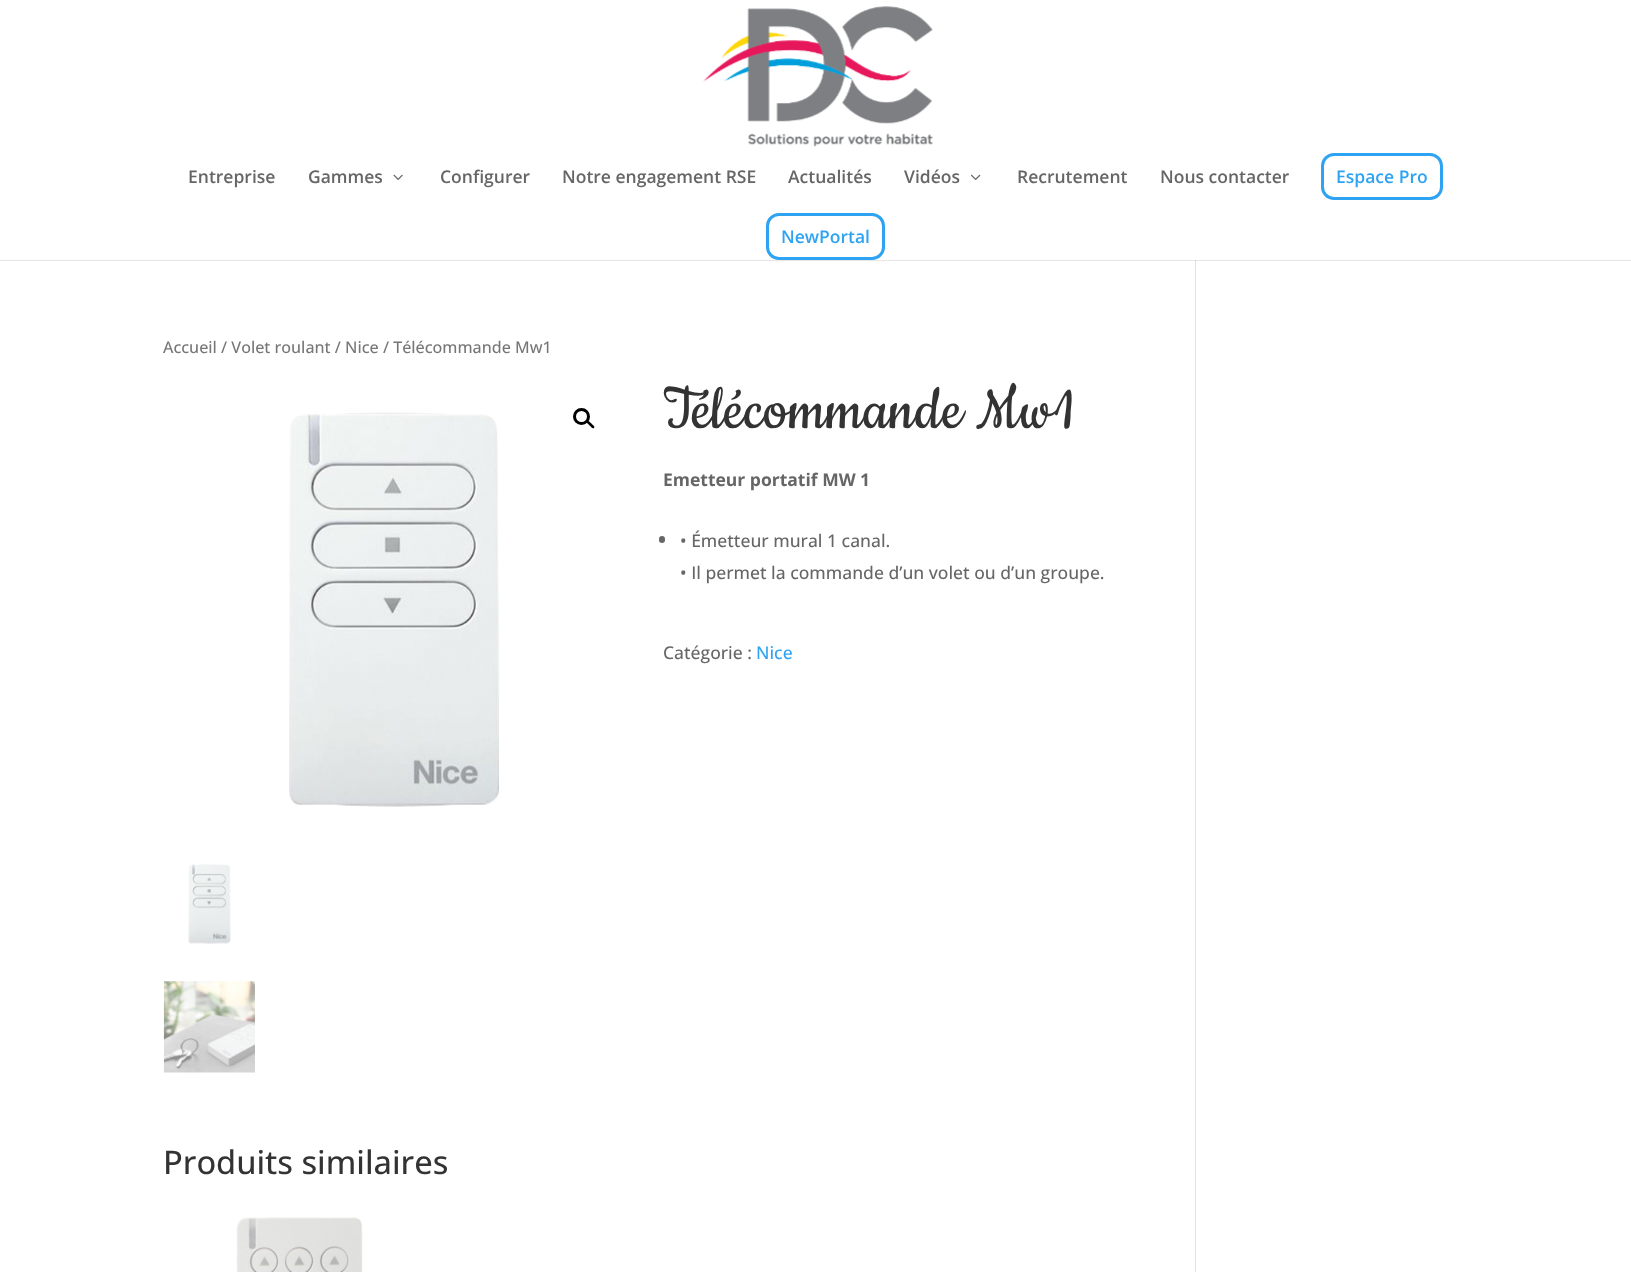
<?xml version="1.0" encoding="UTF-8"?>
<svg xmlns="http://www.w3.org/2000/svg" xmlns:xlink="http://www.w3.org/1999/xlink" width="1631" height="1272">
  <rect width="100%" height="100%" fill="#ffffff" />
  <rect y="260" width="1631" height="1" fill="#e6e6e6" />
  <image x="703" y="6" width="230" height="141" xlink:href="image1.png" />
  <image x="393" y="174" width="10" height="6" xlink:href="image2.png" />
  <image x="971" y="174" width="10" height="6" xlink:href="image3.png" />
  <rect x="1322.5" y="154.5" width="119" height="44" rx="11.5" fill="none" stroke="#2ea3f2" stroke-width="3" />
  <rect x="767.5" y="214.5" width="116" height="44" rx="11.5" fill="none" stroke="#2ea3f2" stroke-width="3" />
  <image x="289" y="412" width="210" height="395" xlink:href="image4.png" />
  <circle cx="581.5" cy="416.5" r="7" fill="none" stroke="#000000" stroke-width="3" />
  <path d="M 587 421 c 1.5 -1.5 3.5 2 4.5 2.5 c 0.5 1 4 3 2.5 4.5 c -1.5 1.5 -3.5 -2 -4.5 -2.5 c -0.5 -1 -4 -3 -2.5 -4.5 z" fill="#000000" />
  <image x="188" y="864" width="43" height="80" xlink:href="image5.png" />
  <image x="163" y="981" width="92" height="92" xlink:href="image6.png" />
  <rect x="659" y="536" width="6" height="7" rx="3" fill="#666666" />
  <image x="236" y="1217" width="127" height="55" xlink:href="image7.png" />
  <rect x="1195" y="260" width="1" height="1012" fill="#e2e2e2" />
  <rect x="1195" y="260" width="1" height="1" fill="#cbcbcb" />
  <text x="188" y="183" style="font-family: Open Sans; font-size: 17.5px; font-weight: 600; fill: #666666">Entreprise</text>
  <text x="308" y="183" style="font-family: Open Sans; font-size: 17.5px; font-weight: 600; fill: #666666">Gammes</text>
  <text x="440" y="183" style="font-family: Open Sans; font-size: 17.5px; font-weight: 600; fill: #666666">Configurer</text>
  <text x="562" y="183" style="font-family: Open Sans; font-size: 17.5px; font-weight: 600; fill: #666666">Notre engagement RSE</text>
  <text x="788" y="183" style="font-family: Open Sans; font-size: 17.5px; font-weight: 600; fill: #666666">Actualités</text>
  <text x="904" y="183" style="font-family: Open Sans; font-size: 17.5px; font-weight: 600; fill: #666666">Vidéos</text>
  <text x="1017" y="183" style="font-family: Open Sans; font-size: 17.5px; font-weight: 600; fill: #666666">Recrutement</text>
  <text x="1160" y="183" style="font-family: Open Sans; font-size: 17.5px; font-weight: 600; fill: #666666">Nous contacter</text>
  <text x="1336" y="183" style="font-family: Open Sans; font-size: 17.5px; font-weight: 600; fill: #2ea3f2">Espace Pro</text>
  <text x="781" y="243" style="font-family: Open Sans; font-size: 17.5px; font-weight: 600; fill: #2ea3f2">NewPortal</text>
  <text x="163" y="353" style="font-family: Open Sans; font-size: 16.1px; font-weight: 500; fill: #767676">Accueil / Volet roulant / Nice / Télécommande Mw1</text>
  <text x="663" y="428" style="font-family: Cookie; font-size: 68.75px; fill: #333333">Télécommande Mw1</text>
  <text x="663" y="486" style="font-family: Open Sans; font-size: 17.5px; font-weight: bold; fill: #666666">Emetteur portatif MW 1</text>
  <text x="680" y="547" style="font-family: Open Sans; font-size: 17.5px; font-weight: 500; fill: #666666">• Émetteur mural 1 canal.</text>
  <text x="680" y="579" style="font-family: Open Sans; font-size: 17.5px; font-weight: 500; fill: #666666">• Il permet la commande d’un volet ou d’un groupe.</text>
  <text x="663" y="659" style="font-family: Open Sans; font-size: 17.5px; font-weight: 500; fill: #666666">Catégorie :</text>
  <text x="756" y="659" style="font-family: Open Sans; font-size: 17.5px; font-weight: 500; fill: #2ea3f2">Nice</text>
  <text x="163" y="1174" style="font-family: Open Sans; font-size: 32.5px; font-weight: 500; fill: #333333">Produits similaires</text>
</svg>
